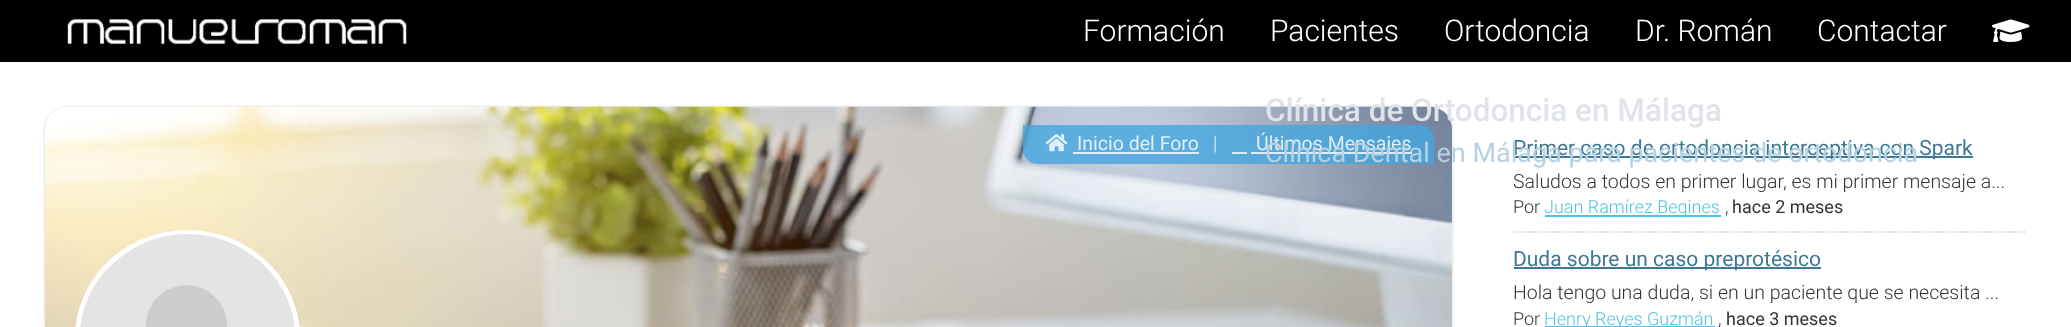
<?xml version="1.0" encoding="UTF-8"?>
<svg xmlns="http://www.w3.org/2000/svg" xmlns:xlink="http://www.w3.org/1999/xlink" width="2071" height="327">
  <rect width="100%" height="100%" fill="#ffffff" />
  <rect width="2071" height="62" fill="#000000" />
  <image x="67" y="19" width="340" height="26" xlink:href="image1.png" />
  <image x="1992" y="19" width="38" height="23" xlink:href="image2.png" />
  <rect x="45" y="107" width="1407" height="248" rx="23" fill="#cccccc" filter="blur(1.5px)" />
  <image x="45" y="106" width="1407" height="221" xlink:href="image3.png" />
  <path d="M 1023 125 h 396 c 8.5 0 15 6.5 15 15 v 24 h -396 c -8.5 0 -15 -6.5 -15 -15 z" fill="#43a6df" fill-opacity="0.8" />
  <image x="1045" y="134" width="23" height="18" xlink:href="image4.png" />
  <rect x="1073" y="152" width="126" height="2" fill="#deeff8" />
  <rect x="1232" y="152" width="15" height="2" fill="#deeef8" />
  <rect x="1251" y="152" width="161" height="2" fill="#ffffff" fill-opacity="0.8" />
  <rect x="77.5" y="232.5" width="220" height="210" rx="110" fill="none" stroke="#ffffff" stroke-width="5" />
  <image x="80" y="234" width="215" height="93" xlink:href="image5.png" />
  <path d="M 1513.5 232 h 511.5" fill="none" stroke="#cccccc" stroke-width="1.5" stroke-dasharray="1.5 1.5" />
  <rect x="1514" y="156" width="459" height="2" fill="#3f7796" />
  <rect x="1545" y="215" width="176" height="2" fill="#4ec3e0" />
  <rect x="1514" y="267" width="307" height="2" fill="#3f7796" />
  <rect x="1545" y="326" width="170" height="1" fill="#4ec3e0" />
  <text x="1083" y="41" style="font-family: Roboto; font-size: 30px; font-weight: 300; fill: #ffffff">Formación</text>
  <text x="1270" y="41" style="font-family: Roboto; font-size: 30px; font-weight: 300; fill: #ffffff">Pacientes</text>
  <text x="1444" y="41" style="font-family: Roboto; font-size: 30px; font-weight: 300; fill: #ffffff">Ortodoncia</text>
  <text x="1635" y="41" style="font-family: Roboto; font-size: 30px; font-weight: 300; fill: #ffffff">Dr. Román</text>
  <text x="1817" y="41" style="font-family: Roboto; font-size: 30px; font-weight: 300; fill: #ffffff">Contactar</text>
  <text x="1265" y="121" style="font-family: Roboto; font-size: 31.5px; font-weight: 500; fill: #e0e3e9">Clínica de Ortodoncia en Málaga</text>
  <text x="1077" y="150" style="font-family: Roboto; font-size: 19.5px; fill: #deeff8">Inicio del Foro</text>
  <text x="1213" y="150" style="font-family: Roboto; font-size: 19.5px; font-weight: 300; fill: #f0f3f6">|</text>
  <text x="1256" y="150" style="font-family: Roboto; font-size: 19.5px; fill: #deeff8">Últimos Mensajes</text>
  <text x="1513" y="155" style="font-family: Roboto; font-size: 21px; fill: #3f7796">Primer caso de ortodoncia interceptiva con Spark</text>
  <text x="1265" y="162" style="font-family: Roboto; font-size: 27px; fill: #b6d2e2">Clínica Dental en Málaga para pacientes de ortodoncia</text>
  <text x="1513" y="188" style="font-family: Roboto; font-size: 19.5px; font-weight: 300; fill: #333333">Saludos a todos en primer lugar, es mi primer mensaje a...</text>
  <text x="1513" y="213" style="font-family: Roboto; font-size: 18px; font-weight: 300; fill: #333333">Por</text>
  <text x="1544" y="213" style="font-family: Roboto; font-size: 18px; font-weight: 300; fill: #4ec3e0">Juan Ramírez Begines</text>
  <text x="1725" y="213" style="font-family: Roboto; font-size: 18px; font-weight: 300; fill: #333333">,</text>
  <text x="1732" y="213" style="font-family: Roboto; font-size: 18px; fill: #333333">hace 2 meses</text>
  <text x="1513" y="266" style="font-family: Roboto; font-size: 21px; fill: #3f7796">Duda sobre un caso preprotésico</text>
  <text x="1513" y="299" style="font-family: Roboto; font-size: 19.5px; font-weight: 300; fill: #333333">Hola tengo una duda, si en un paciente que se necesita ...</text>
  <text x="1513" y="325" style="font-family: Roboto; font-size: 18px; font-weight: 300; fill: #333333">Por</text>
  <text x="1544" y="325" style="font-family: Roboto; font-size: 18px; font-weight: 300; fill: #4ec3e0">Henry Reyes Guzmán</text>
  <text x="1718" y="325" style="font-family: Roboto; font-size: 18px; font-weight: 300; fill: #333333">,</text>
  <text x="1726" y="325" style="font-family: Roboto; font-size: 18px; fill: #333333">hace 3 meses</text>
</svg>
